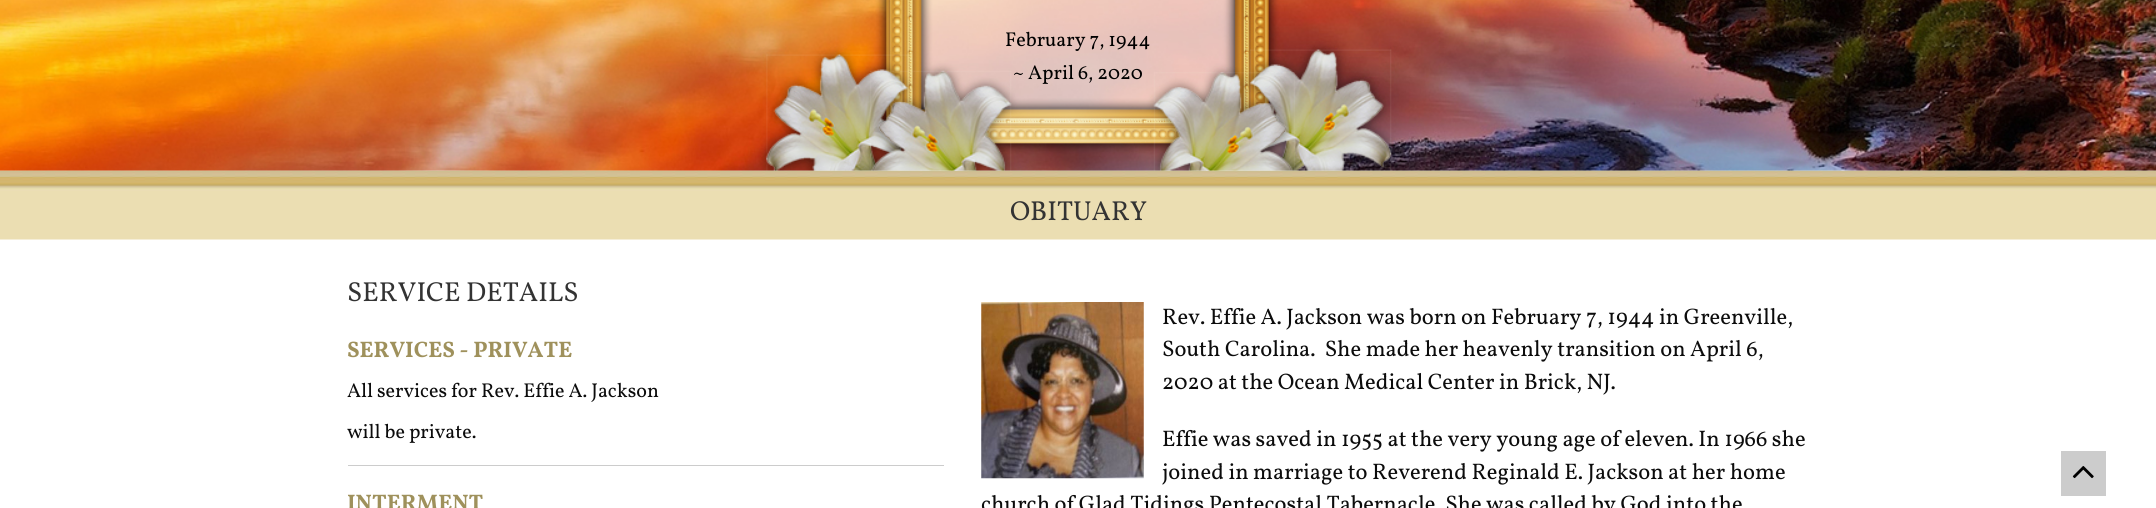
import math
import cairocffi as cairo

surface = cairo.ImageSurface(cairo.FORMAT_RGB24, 2156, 508)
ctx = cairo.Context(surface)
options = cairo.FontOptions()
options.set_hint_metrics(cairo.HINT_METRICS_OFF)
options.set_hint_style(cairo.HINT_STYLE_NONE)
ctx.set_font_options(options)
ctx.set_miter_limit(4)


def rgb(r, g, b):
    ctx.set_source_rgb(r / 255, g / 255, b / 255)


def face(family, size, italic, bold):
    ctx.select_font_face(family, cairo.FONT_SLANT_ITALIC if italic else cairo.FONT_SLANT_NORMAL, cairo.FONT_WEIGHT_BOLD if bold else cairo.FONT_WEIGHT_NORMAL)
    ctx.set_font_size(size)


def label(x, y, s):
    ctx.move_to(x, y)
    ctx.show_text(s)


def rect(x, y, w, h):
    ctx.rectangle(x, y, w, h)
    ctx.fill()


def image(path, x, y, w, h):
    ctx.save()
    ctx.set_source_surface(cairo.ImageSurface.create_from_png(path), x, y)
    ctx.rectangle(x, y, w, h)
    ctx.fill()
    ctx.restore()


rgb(255, 255, 255)
ctx.paint()
image('image0.png', 0, 0, 2156, 171)
face('Vollkorn', 20, 0, 0)
rgb(0, 0, 0)
label(1005, 46, 'February 7, 1944')
label(1013, 79, '~ April 6, 2020')
image('image1.png', 0, 170, 2156, 70)
face('Vollkorn', 27.5, 0, 0)
rgb(51, 51, 51)
label(1010, 220, 'OBITUARY')
label(347, 301, 'SERVICE DETAILS')
face('Vollkorn', 22.5, 0, 1)
rgb(159, 145, 92)
label(347, 357, 'SERVICES - PRIVATE')
face('Vollkorn', 20, 0, 0)
rgb(12, 12, 12)
label(347, 397, 'All services for Rev. Effie A. Jackson')
label(347, 438, 'will be private.')
rgb(204, 204, 204)
rect(348, 465, 596, 1)
face('Vollkorn', 22.5, 0, 1)
rgb(159, 145, 92)
label(347, 510, 'INTERMENT')
image('image2.png', 981, 302, 163, 177)
face('Vollkorn', 22.5, 0, 0)
rgb(12, 12, 12)
label(1162, 324, 'Rev. Effie A. Jackson was born on February 7, 1944 in Greenville,')
label(1162, 356, 'South Carolina.  She made her heavenly transition on April 6,')
label(1162, 389, '2020 at the Ocean Medical Center in Brick, NJ.')
label(1162, 446, 'Effie was saved in 1955 at the very young age of eleven. In 1966 she')
label(1162, 479, 'joined in marriage to Reverend Reginald E. Jackson at her home')
label(981, 511, 'church of Glad Tidings Pentecostal Tabernacle. She was called by God into the')
rgb(204, 204, 204)
rect(2061, 451, 45, 45)
image('image3.png', 2072, 466, 22, 13)
surface.write_to_png('render.png')
